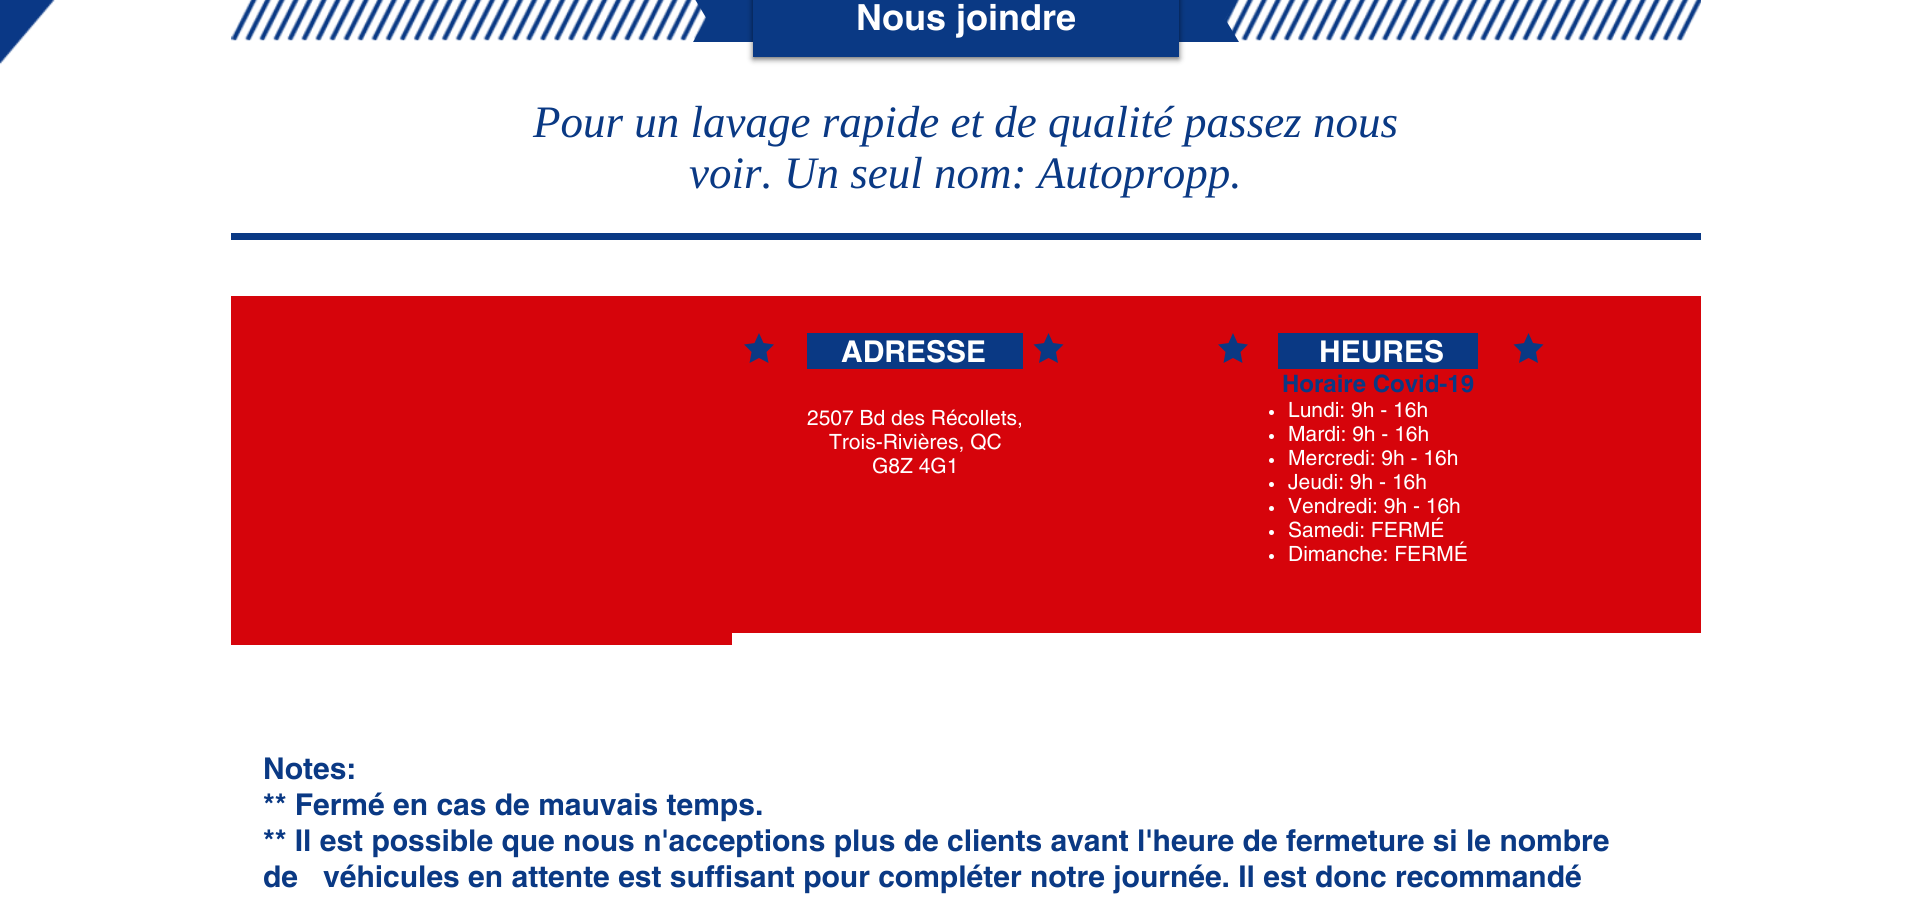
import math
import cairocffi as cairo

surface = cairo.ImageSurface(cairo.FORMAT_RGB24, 1930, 909)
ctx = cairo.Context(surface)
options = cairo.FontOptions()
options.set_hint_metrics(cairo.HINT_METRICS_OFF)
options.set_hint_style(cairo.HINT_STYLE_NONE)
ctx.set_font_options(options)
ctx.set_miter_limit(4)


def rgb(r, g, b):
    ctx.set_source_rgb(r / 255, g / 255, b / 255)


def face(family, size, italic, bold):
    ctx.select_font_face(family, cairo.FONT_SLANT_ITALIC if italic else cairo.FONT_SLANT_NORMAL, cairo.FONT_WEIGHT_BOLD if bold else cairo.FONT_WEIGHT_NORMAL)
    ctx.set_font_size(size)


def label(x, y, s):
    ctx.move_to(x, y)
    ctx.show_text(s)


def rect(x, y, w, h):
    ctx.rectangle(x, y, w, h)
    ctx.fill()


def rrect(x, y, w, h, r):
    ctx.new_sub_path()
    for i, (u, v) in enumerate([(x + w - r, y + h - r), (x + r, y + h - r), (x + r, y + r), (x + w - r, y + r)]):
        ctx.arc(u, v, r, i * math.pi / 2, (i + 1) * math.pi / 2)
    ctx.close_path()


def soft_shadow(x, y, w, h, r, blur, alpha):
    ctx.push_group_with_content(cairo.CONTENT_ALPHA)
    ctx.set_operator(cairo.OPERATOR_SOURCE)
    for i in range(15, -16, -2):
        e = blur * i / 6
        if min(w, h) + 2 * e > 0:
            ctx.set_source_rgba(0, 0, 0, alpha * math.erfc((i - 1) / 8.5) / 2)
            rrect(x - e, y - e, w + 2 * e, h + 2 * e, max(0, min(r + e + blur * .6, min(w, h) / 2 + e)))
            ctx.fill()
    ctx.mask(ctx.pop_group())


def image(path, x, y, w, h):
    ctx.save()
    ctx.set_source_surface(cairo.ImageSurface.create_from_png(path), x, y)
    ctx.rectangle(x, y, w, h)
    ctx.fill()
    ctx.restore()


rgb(255, 255, 255)
ctx.paint()
image('image0.png', 0, 0, 55, 65)
image('image1.png', 231, 0, 1470, 41)
ctx.save()
ctx.rectangle(693, 0, 546, 20)
ctx.clip()
rgb(10, 57, 132)
ctx.new_path()
ctx.move_to(693, -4)
ctx.line_to(783, -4)
ctx.line_to(783, 146)
ctx.close_path()
ctx.fill()
ctx.new_path()
ctx.move_to(1149, -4)
ctx.line_to(1239, -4)
ctx.line_to(1149, 146)
ctx.close_path()
ctx.fill()
ctx.restore()
ctx.save()
ctx.rectangle(693, 20, 546, 22)
ctx.clip()
rgb(10, 57, 132)
ctx.new_path()
ctx.move_to(783, 42)
ctx.line_to(693, 42)
ctx.line_to(783, -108)
ctx.close_path()
ctx.fill()
ctx.new_path()
ctx.move_to(1239, 42)
ctx.line_to(1149, 42)
ctx.line_to(1149, -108)
ctx.close_path()
ctx.fill()
ctx.restore()
rgb(0, 0, 0)
soft_shadow(753, -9, 426, 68, 0, 3, 0.6)
rgb(10, 57, 132)
rect(753, 0, 426, 57)
face('helvetica', 36, 0, 1)
rgb(255, 255, 255)
label(856, 30, 'Nous joindre')
face('Liberation Serif', 45, 1, 0)
rgb(10, 57, 132)
label(533, 137, 'Pour un lavage rapide et de qualité passez nous')
label(689, 188, 'voir. Un seul nom: Autopropp.')
rect(231, 233, 1470, 7)
rgb(214, 4, 11)
rect(231, 296, 501, 349)
rect(732, 296, 969, 337)
rgb(10, 57, 132)
ctx.new_path()
ctx.move_to(759, 333)
ctx.line_to(763.5, 343)
ctx.line_to(774, 344.5)
ctx.line_to(766.5, 352)
ctx.line_to(768.5, 363)
ctx.line_to(759, 358)
ctx.line_to(749.5, 363)
ctx.line_to(751.5, 352)
ctx.line_to(744, 344.5)
ctx.line_to(754.5, 343)
ctx.close_path()
ctx.fill()
rect(807, 333, 216, 36)
face('helvetica', 30, 0, 1)
rgb(255, 255, 255)
label(841, 362, 'ADRESSE')
face('helvetica', 21, 0, 0)
label(807, 425, '2507 Bd des Récollets,')
label(829, 449, 'Trois-Rivières, QC')
label(872, 473, 'G8Z 4G1')
rgb(10, 57, 132)
ctx.new_path()
ctx.move_to(1048.5, 333)
ctx.line_to(1053, 343)
ctx.line_to(1063.5, 344.5)
ctx.line_to(1056, 352)
ctx.line_to(1058, 363)
ctx.line_to(1048.5, 358)
ctx.line_to(1039, 363)
ctx.line_to(1041, 352)
ctx.line_to(1033.5, 344.5)
ctx.line_to(1044, 343)
ctx.close_path()
ctx.fill()
ctx.new_path()
ctx.move_to(1233, 333)
ctx.line_to(1237.5, 343)
ctx.line_to(1248, 344.5)
ctx.line_to(1240.5, 352)
ctx.line_to(1242.5, 363)
ctx.line_to(1233, 358)
ctx.line_to(1223.5, 363)
ctx.line_to(1225.5, 352)
ctx.line_to(1218, 344.5)
ctx.line_to(1228.5, 343)
ctx.close_path()
ctx.fill()
rect(1278, 333, 200, 36)
face('helvetica', 30, 0, 1)
rgb(255, 255, 255)
label(1319, 362, 'HEURES')
face('helvetica', 24, 0, 1)
rgb(10, 57, 132)
label(1282, 392, 'Horaire Covid-19')
rgb(255, 255, 255)
ctx.new_path()
ctx.arc(1271.5, 412.5, 2.5, 0, 2 * math.pi)
ctx.fill()
face('helvetica', 21, 0, 0)
label(1288, 417, 'Lundi: 9h - 16h')
ctx.new_path()
ctx.arc(1271.5, 436.5, 2.5, 0, 2 * math.pi)
ctx.fill()
label(1288, 441, 'Mardi: 9h - 16h')
ctx.new_path()
ctx.arc(1271.5, 460.5, 2.5, 0, 2 * math.pi)
ctx.fill()
label(1288, 465, 'Mercredi: 9h - 16h')
ctx.new_path()
ctx.arc(1271.5, 484.5, 2.5, 0, 2 * math.pi)
ctx.fill()
label(1288, 489, 'Jeudi: 9h - 16h')
ctx.new_path()
ctx.arc(1271.5, 508.5, 2.5, 0, 2 * math.pi)
ctx.fill()
label(1288, 513, 'Vendredi: 9h - 16h')
ctx.new_path()
ctx.arc(1271.5, 532.5, 2.5, 0, 2 * math.pi)
ctx.fill()
label(1288, 537, 'Samedi: FERMÉ')
ctx.new_path()
ctx.arc(1271.5, 556.5, 2.5, 0, 2 * math.pi)
ctx.fill()
label(1288, 561, 'Dimanche: FERMÉ')
rgb(10, 57, 132)
ctx.new_path()
ctx.move_to(1528.5, 333)
ctx.line_to(1533, 343)
ctx.line_to(1543.5, 344.5)
ctx.line_to(1536, 352)
ctx.line_to(1538, 363)
ctx.line_to(1528.5, 358)
ctx.line_to(1519, 363)
ctx.line_to(1521, 352)
ctx.line_to(1513.5, 344.5)
ctx.line_to(1524, 343)
ctx.close_path()
ctx.fill()
face('helvetica', 30, 0, 1)
label(263, 779, 'Notes:')
label(263, 815, '** Fermé en cas de mauvais temps.')
label(263, 851, '** Il est possible que nous n\'acceptions plus de clients avant l\'heure de fermeture si le nombre')
label(263, 887, 'de   véhicules en attente est suffisant pour compléter notre journée. Il est donc recommandé')
surface.write_to_png('render.png')
